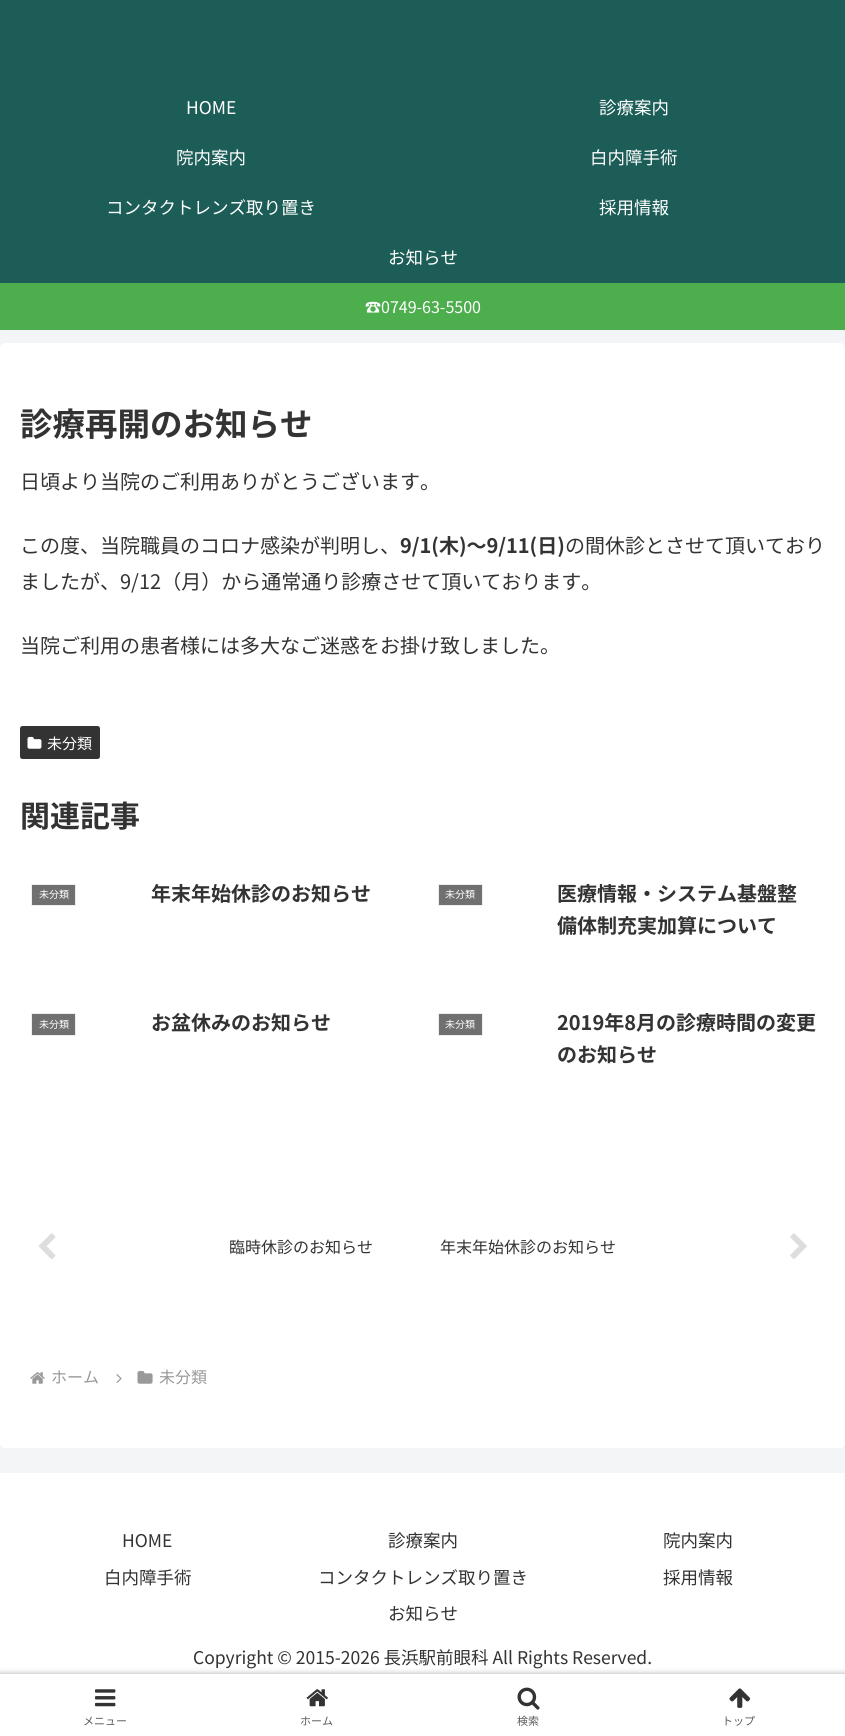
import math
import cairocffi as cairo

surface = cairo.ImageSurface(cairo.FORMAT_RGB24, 845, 1736)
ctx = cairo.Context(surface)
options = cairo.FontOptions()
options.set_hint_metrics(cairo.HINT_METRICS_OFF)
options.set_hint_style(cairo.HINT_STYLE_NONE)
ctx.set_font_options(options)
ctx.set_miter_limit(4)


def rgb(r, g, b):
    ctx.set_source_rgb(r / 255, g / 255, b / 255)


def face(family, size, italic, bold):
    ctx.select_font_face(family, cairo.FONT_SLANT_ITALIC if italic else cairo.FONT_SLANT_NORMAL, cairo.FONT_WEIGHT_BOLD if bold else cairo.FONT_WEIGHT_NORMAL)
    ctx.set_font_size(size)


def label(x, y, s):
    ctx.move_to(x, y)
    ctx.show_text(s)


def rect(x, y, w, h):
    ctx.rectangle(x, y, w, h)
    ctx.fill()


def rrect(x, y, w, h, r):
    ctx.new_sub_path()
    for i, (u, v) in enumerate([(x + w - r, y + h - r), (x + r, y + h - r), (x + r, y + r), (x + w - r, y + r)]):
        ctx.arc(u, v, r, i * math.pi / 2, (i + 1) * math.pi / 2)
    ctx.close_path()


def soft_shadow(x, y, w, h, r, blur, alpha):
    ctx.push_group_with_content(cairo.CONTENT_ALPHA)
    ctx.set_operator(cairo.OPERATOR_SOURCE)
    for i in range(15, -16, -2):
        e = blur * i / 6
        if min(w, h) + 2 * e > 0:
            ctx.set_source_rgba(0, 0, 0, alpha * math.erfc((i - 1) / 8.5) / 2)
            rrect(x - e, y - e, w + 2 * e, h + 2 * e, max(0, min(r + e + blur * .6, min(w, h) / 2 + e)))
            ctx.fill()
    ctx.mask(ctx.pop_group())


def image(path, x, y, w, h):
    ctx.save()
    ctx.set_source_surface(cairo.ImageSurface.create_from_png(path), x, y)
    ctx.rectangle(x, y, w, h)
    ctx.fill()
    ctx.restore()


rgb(244, 245, 247)
ctx.paint()
rgb(28, 93, 87)
rect(0, 0, 845, 283)
face('Noto Sans JP', 17.5, 0, 0)
rgb(255, 255, 255)
label(186, 114, 'HOME')
label(599, 114, '診療案内')
label(176, 164, '院内案内')
label(590, 164, '白内障手術')
label(106, 214, 'コンタクトレンズ取り置き')
label(599, 214, '採用情報')
label(388, 264, 'お知らせ')
rgb(76, 174, 76)
rect(0, 283, 845, 47)
face('Noto Sans JP', 16, 0, 0)
rgb(255, 255, 255)
label(365, 313, '☎0749-63-5500')
rrect(0, 343, 845, 1105, 5)
ctx.fill()
face('Noto Sans JP', 32.5, 0, 1)
rgb(51, 51, 51)
label(20, 436, '診療再開のお知らせ')
face('Noto Sans JP', 20, 0, 0)
label(20, 489, '日頃より当院のご利用ありがとうございます。')
label(20, 553, 'この度、当院職員のコロナ感染が判明し、')
face('Noto Sans JP', 20, 0, 1)
label(400, 553, '9/1(木)〜9/11(日)')
face('Noto Sans JP', 20, 0, 0)
label(565, 553, 'の間休診とさせて頂いており')
label(20, 589, 'ましたが、9/12（月）から通常通り診療させて頂いております。')
label(20, 653, '当院ご利用の患者様には多大なご迷惑をお掛け致しました。')
rrect(20, 726, 80, 33, 2.5)
ctx.fill()
image('image0.png', 27, 736, 15, 13)
face('Noto Sans JP', 15, 0, 0)
rgb(255, 255, 255)
label(47, 749, '未分類')
face('Noto Sans JP', 30, 0, 1)
rgb(51, 51, 51)
label(20, 827, '関連記事')
rgb(112, 112, 112)
ctx.rectangle(31.5, 884.5, 44, 21)
ctx.fill_preserve()
rgb(238, 238, 238)
ctx.set_line_width(1)
ctx.stroke()
face('Noto Sans JP', 10, 0, 0)
rgb(255, 255, 255)
label(39, 898, '未分類')
face('Noto Sans JP', 20, 0, 1)
rgb(51, 51, 51)
label(151, 901, '年末年始休診のお知らせ')
rgb(112, 112, 112)
ctx.rectangle(438.5, 884.5, 44, 21)
ctx.fill_preserve()
rgb(238, 238, 238)
ctx.stroke()
face('Noto Sans JP', 10, 0, 0)
rgb(255, 255, 255)
label(445, 898, '未分類')
face('Noto Sans JP', 20, 0, 1)
rgb(51, 51, 51)
label(557, 901, '医療情報・システム基盤整')
label(557, 933, '備体制充実加算について')
rgb(112, 112, 112)
ctx.rectangle(31.5, 1013.5, 44, 22)
ctx.fill_preserve()
rgb(238, 238, 238)
ctx.stroke()
face('Noto Sans JP', 10, 0, 0)
rgb(255, 255, 255)
label(39, 1028, '未分類')
face('Noto Sans JP', 20, 0, 1)
rgb(51, 51, 51)
label(151, 1030, 'お盆休みのお知らせ')
rgb(112, 112, 112)
ctx.rectangle(438.5, 1013.5, 44, 22)
ctx.fill_preserve()
rgb(238, 238, 238)
ctx.stroke()
face('Noto Sans JP', 10, 0, 0)
rgb(255, 255, 255)
label(445, 1028, '未分類')
face('Noto Sans JP', 20, 0, 1)
rgb(51, 51, 51)
label(557, 1030, '2019年8月の診療時間の変更')
label(557, 1062, 'のお知らせ')
image('image1.png', 38, 1233, 18, 26)
face('Noto Sans JP', 16, 0, 0)
label(229, 1253, '臨時休診のお知らせ')
label(440, 1253, '年末年始休診のお知らせ')
image('image2.png', 790, 1233, 17, 26)
image('image3.png', 30, 1372, 15, 12)
rgb(153, 153, 153)
label(51, 1383, 'ホーム')
image('image4.png', 116, 1374, 6, 9)
image('image5.png', 137, 1371, 16, 13)
label(159, 1383, '未分類')
rgb(255, 255, 255)
rect(0, 1473, 845, 201)
face('Noto Sans JP', 17.5, 0, 0)
rgb(51, 51, 51)
label(122, 1547, 'HOME')
label(388, 1547, '診療案内')
label(663, 1547, '院内案内')
label(104, 1584, '白内障手術')
label(318, 1584, 'コンタクトレンズ取り置き')
label(663, 1584, '採用情報')
label(388, 1620, 'お知らせ')
label(193, 1664, 'Copyright © 2015-2026 長浜駅前眼科 All Rights Reserved.')
rgb(169, 169, 169)
soft_shadow(0, 1674, 845, 62, 0, 3, 1)
rgb(255, 255, 255)
rect(0, 1674, 845, 62)
image('image6.png', 95, 1689, 21, 18)
face('Noto Sans JP', 11, 0, 0)
rgb(92, 92, 92)
label(83, 1725, 'メニュー')
image('image7.png', 306, 1689, 22, 18)
label(300, 1725, 'ホーム')
image('image8.png', 517, 1687, 23, 23)
label(517, 1725, '検索')
image('image9.png', 729, 1688, 22, 20)
label(722, 1725, 'トップ')
surface.write_to_png('render.png')
